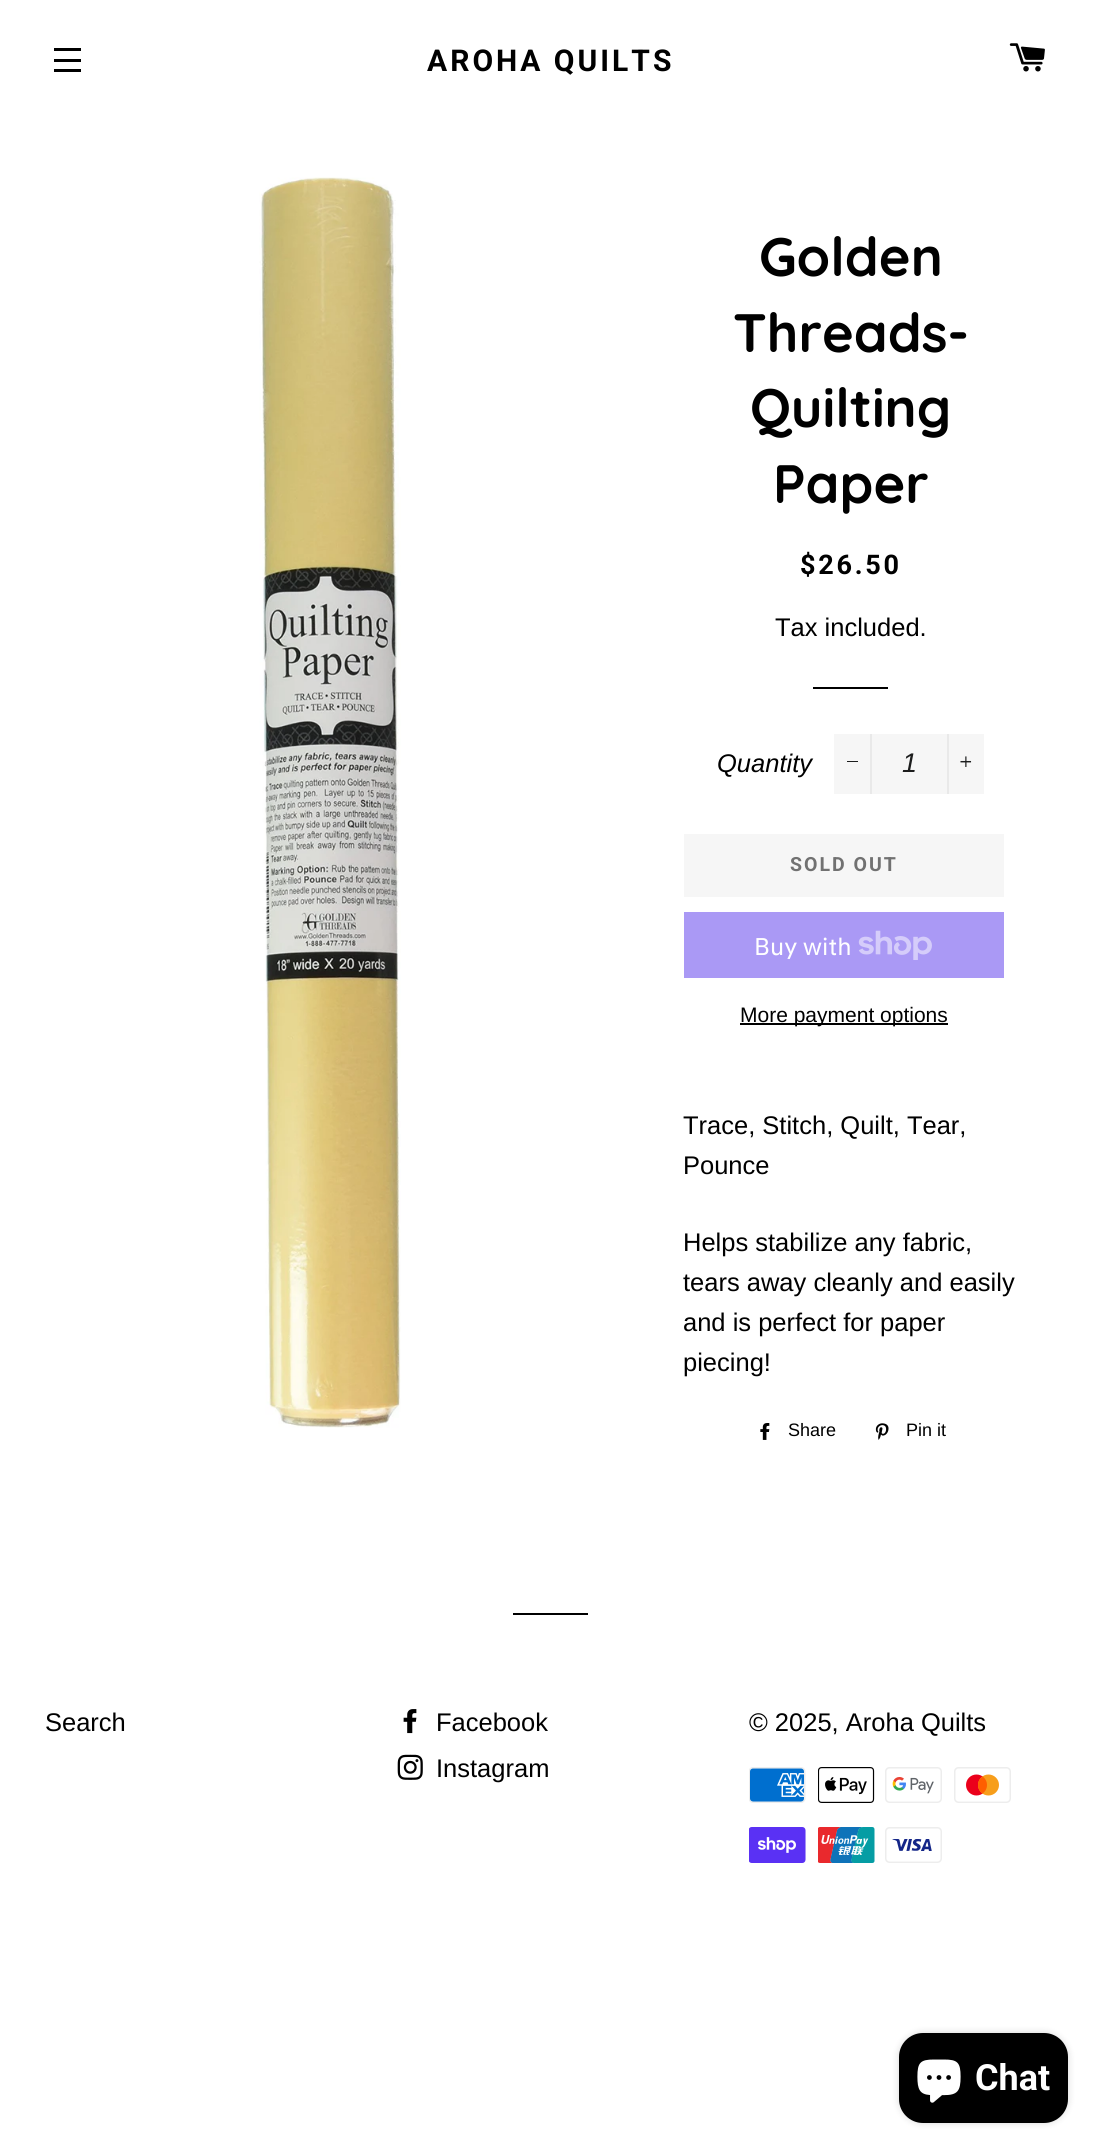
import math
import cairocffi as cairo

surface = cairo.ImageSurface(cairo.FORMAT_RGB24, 1100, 2154)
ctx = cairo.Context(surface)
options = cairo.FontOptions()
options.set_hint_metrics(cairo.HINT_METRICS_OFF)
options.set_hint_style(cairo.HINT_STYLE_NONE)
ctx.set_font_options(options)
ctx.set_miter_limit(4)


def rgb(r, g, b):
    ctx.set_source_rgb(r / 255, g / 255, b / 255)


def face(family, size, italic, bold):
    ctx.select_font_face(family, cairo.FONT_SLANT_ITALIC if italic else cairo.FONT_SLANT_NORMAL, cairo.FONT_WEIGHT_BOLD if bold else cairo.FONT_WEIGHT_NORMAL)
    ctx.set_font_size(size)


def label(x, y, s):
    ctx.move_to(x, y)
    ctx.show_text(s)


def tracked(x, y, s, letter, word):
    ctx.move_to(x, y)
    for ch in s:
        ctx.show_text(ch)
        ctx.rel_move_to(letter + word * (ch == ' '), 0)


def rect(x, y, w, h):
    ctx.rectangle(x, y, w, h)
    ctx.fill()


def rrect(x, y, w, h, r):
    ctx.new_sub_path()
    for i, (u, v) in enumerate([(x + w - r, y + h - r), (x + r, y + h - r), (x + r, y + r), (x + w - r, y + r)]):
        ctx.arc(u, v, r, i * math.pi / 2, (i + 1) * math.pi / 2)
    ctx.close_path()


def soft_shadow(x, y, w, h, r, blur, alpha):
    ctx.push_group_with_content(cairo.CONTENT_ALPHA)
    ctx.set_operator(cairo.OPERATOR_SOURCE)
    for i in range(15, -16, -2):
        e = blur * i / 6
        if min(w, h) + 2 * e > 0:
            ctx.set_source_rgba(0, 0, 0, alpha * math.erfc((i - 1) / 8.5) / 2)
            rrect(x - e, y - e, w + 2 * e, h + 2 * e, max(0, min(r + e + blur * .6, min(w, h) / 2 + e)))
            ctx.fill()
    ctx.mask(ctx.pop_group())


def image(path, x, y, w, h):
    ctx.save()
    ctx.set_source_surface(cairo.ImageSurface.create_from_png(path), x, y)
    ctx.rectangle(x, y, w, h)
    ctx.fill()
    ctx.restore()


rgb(255, 255, 255)
ctx.paint()
rgb(0, 0, 0)
rect(54, 48, 27, 3)
rect(54, 59, 27, 3)
rect(54, 69, 27, 3)
face('Roboto', 30, 0, 1)
tracked(427, 71, 'AROHA QUILTS', 3, 0)
image('image0.png', 1009, 43, 36, 29)
image('image1.png', 259, 177, 142, 1251)
face('Quicksand', 54, 0, 1)
label(759, 276, 'Golden')
label(733, 352, 'Threads-')
label(750, 427, 'Quilting')
label(773, 503, 'Paper')
face('Roboto', 27, 0, 1)
tracked(800, 574, '$26.50', 2.75, 0)
face('Liberation Sans', 25.5, 0, 0)
label(775, 636, 'Tax included.')
rect(813, 687, 75, 2)
face('Liberation Sans', 25.5, 1, 0)
label(717, 772, 'Quantity')
rgb(246, 246, 246)
rect(834, 734, 150, 60)
rgb(233, 233, 233)
rect(870, 734, 2, 60)
rgb(28, 29, 29)
rect(847, 761, 11, 1)
face('Liberation Sans', 27, 1, 0)
label(902, 772, '1')
rgb(233, 233, 233)
rect(947, 734, 2, 60)
image('image2.png', 960, 756, 12, 11)
rgb(246, 246, 246)
rect(684, 834, 320, 63)
face('Roboto', 19.5, 0, 1)
rgb(113, 113, 113)
tracked(790, 871, 'SOLD OUT', 2, 0)
rgb(170, 153, 245)
rect(684, 912, 320, 66)
face('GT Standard', 24, 0, 0)
rgb(255, 255, 255)
label(754, 955, 'Buy with')
image('image3.png', 858, 930, 74, 30)
rgb(0, 0, 0)
rect(740, 1023, 208, 2)
face('Liberation Sans', 21, 0, 0)
label(740, 1022, 'More payment options')
face('Liberation Sans', 25.5, 0, 0)
label(683, 1134, 'Trace, Stitch, Quilt, Tear,')
label(683, 1174, 'Pounce')
label(683, 1251, 'Helps stabilize any fabric,')
label(683, 1291, 'tears away cleanly and easily')
label(683, 1331, 'and is perfect for paper')
label(683, 1371, 'piecing!')
image('image4.png', 760, 1423, 10, 17)
face('Liberation Sans', 18, 0, 0)
label(788, 1436, 'Share')
image('image5.png', 875, 1423, 14, 17)
label(906, 1436, 'Pin it')
rect(513, 1613, 75, 2)
face('Liberation Sans', 25.5, 0, 0)
label(45, 1731, 'Search')
image('image6.png', 403, 1709, 14, 25)
label(436, 1731, 'Facebook')
image('image7.png', 397, 1754, 26, 26)
label(436, 1777, 'Instagram')
label(749, 1731, '© 2025, Aroha Quilts')
image('image8.png', 749, 1767, 57, 36)
image('image9.png', 818, 1767, 57, 36)
image('image10.png', 885, 1767, 57, 36)
image('image11.png', 954, 1767, 57, 36)
image('image12.png', 749, 1827, 57, 36)
image('image13.png', 818, 1827, 57, 36)
image('image14.png', 885, 1827, 57, 36)
rgb(0, 0, 0)
soft_shadow(899, 2033, 169, 90, 24, 4, 0.15)
rgb(0, 0, 0)
rrect(899, 2033, 169, 90, 24)
ctx.fill()
image('image15.png', 917, 2059, 44, 44)
face('Roboto', 36, 0, 1)
rgb(255, 255, 255)
label(975, 2090, 'Chat')
surface.write_to_png('render.png')
